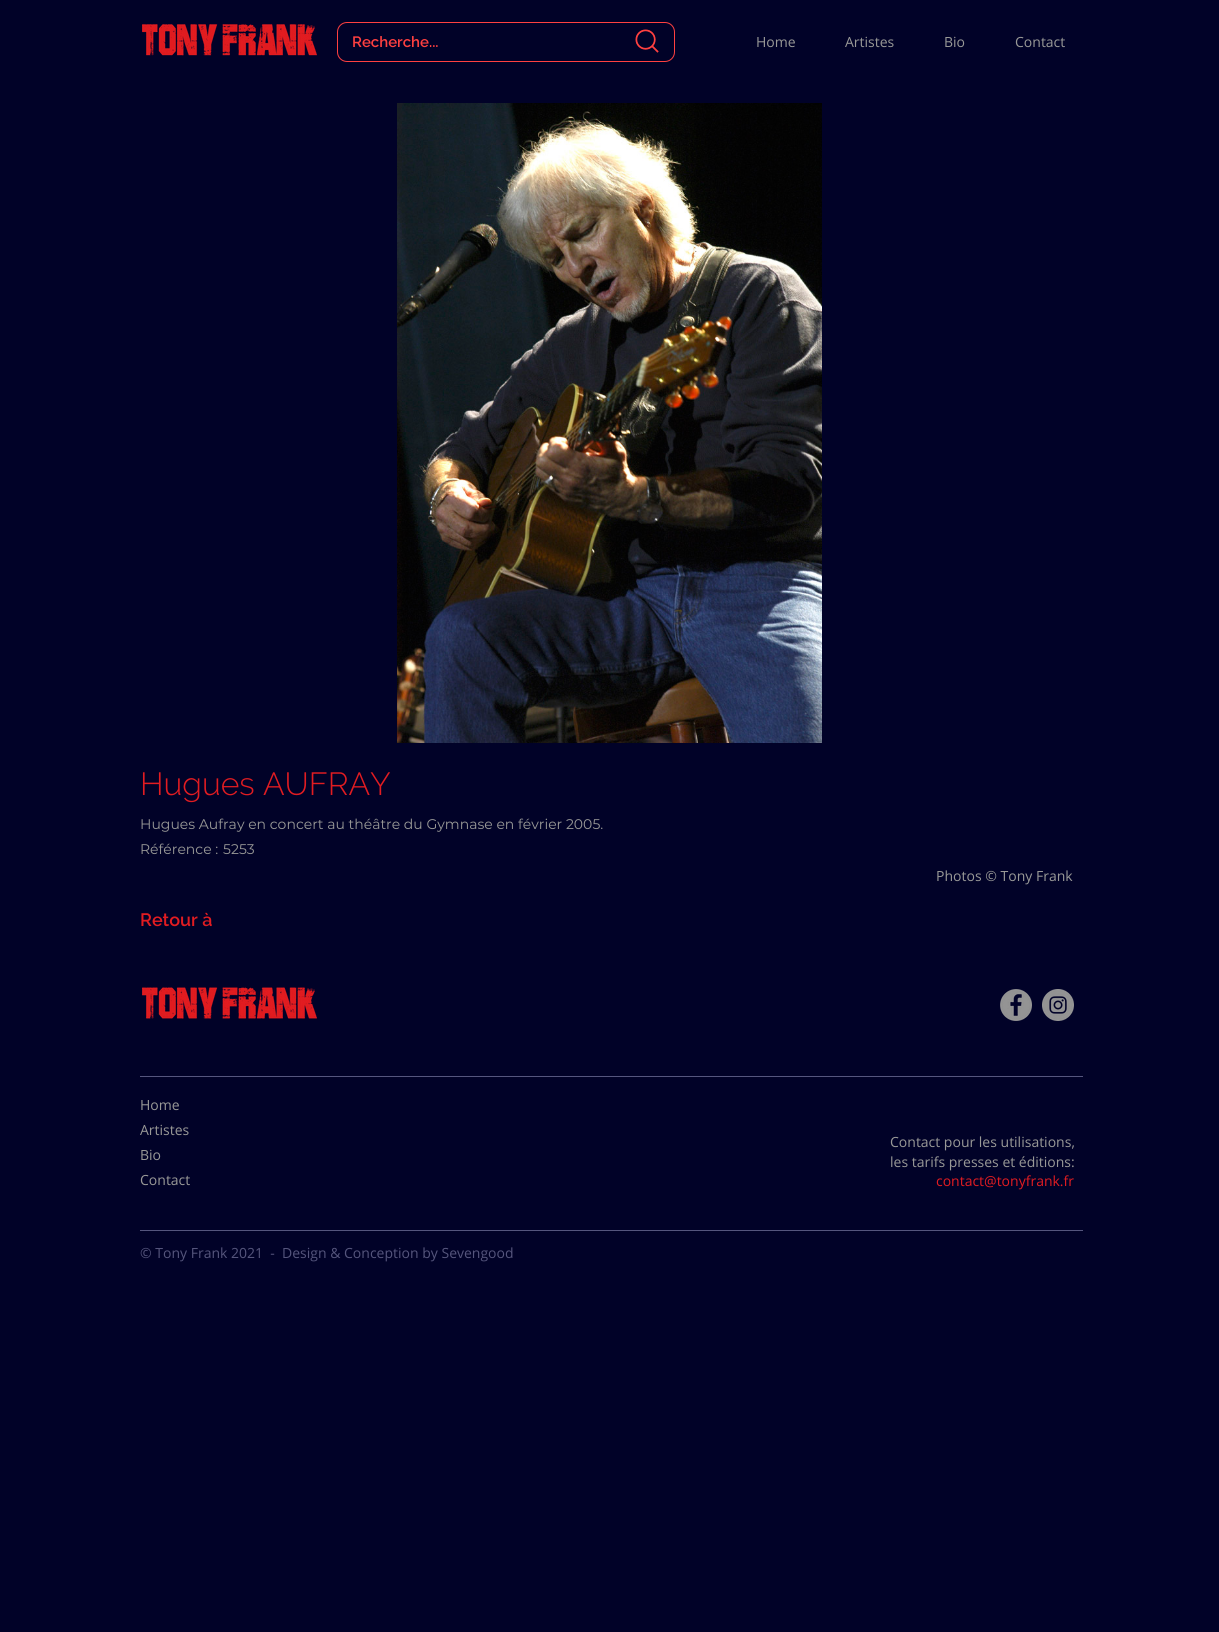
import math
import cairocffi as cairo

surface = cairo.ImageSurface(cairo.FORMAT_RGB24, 1219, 1632)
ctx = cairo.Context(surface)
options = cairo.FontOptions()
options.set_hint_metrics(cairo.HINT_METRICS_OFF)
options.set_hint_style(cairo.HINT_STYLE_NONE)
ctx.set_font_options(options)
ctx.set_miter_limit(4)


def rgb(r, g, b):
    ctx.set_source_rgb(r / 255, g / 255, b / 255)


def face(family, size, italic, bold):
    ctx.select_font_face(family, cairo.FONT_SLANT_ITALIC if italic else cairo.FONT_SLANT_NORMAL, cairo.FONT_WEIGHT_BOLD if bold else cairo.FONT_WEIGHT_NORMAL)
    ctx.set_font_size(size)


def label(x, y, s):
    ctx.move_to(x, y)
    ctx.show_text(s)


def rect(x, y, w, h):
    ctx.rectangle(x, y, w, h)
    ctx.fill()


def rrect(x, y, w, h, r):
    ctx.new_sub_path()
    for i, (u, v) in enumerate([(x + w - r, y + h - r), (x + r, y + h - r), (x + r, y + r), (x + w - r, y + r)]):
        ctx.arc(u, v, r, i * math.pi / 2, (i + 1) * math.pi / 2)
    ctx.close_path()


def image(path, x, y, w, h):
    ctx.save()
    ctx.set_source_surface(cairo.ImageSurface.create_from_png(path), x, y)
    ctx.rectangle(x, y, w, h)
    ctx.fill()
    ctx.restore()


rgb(1, 2, 40)
ctx.paint()
image('image0.png', 142, 24, 175, 32)
rrect(337.5, 22.5, 337, 39, 9.5)
rgb(255, 64, 64)
ctx.set_line_width(1)
ctx.stroke()
face('Raleway SemiBold', 15, 0, 0)
label(352, 47, 'Recherche...')
image('image1.png', 635, 29, 24, 24)
face('Open Sans', 14, 0, 0)
rgb(153, 153, 151)
label(756, 47, 'Home')
label(845, 47, 'Artistes')
label(944, 47, 'Bio')
label(1015, 47, 'Contact')
image('image2.png', 397, 103, 425, 640)
face('Raleway Light', 32, 0, 0)
rgb(226, 28, 33)
label(140, 795, 'Hugues AUFRAY')
face('Montserrat', 14, 0, 0)
rgb(153, 153, 151)
label(140, 829, 'Hugues Aufray en concert au théâtre du Gymnase en février 2005.')
label(140, 854, 'Référence :')
label(223, 854, '5253')
face('Open Sans', 14, 0, 0)
label(936, 881, 'Photos © Tony Frank')
face('Raleway SemiBold', 18, 0, 0)
rgb(226, 28, 33)
label(140, 926, 'Retour à')
image('image3.png', 142, 987, 175, 32)
image('image4.png', 1000, 989, 32, 32)
image('image5.png', 1042, 989, 32, 32)
rgb(85, 86, 126)
rect(140, 1076, 943, 1)
face('Open Sans', 14, 0, 0)
rgb(153, 153, 151)
label(140, 1110, 'Home')
label(140, 1135, 'Artistes')
label(140, 1160, 'Bio')
label(140, 1185, 'Contact')
label(890, 1147, 'Contact pour les utilisations,')
label(890, 1167, 'les tarifs presses et éditions:')
rgb(226, 28, 33)
label(936, 1186, 'contact@tonyfrank.fr')
rgb(85, 86, 126)
rect(140, 1230, 943, 1)
rgb(85, 85, 124)
label(140, 1258, '© Tony Frank 2021  -')
label(282, 1258, 'Design & Conception by Sevengood')
surface.write_to_png('render.png')
